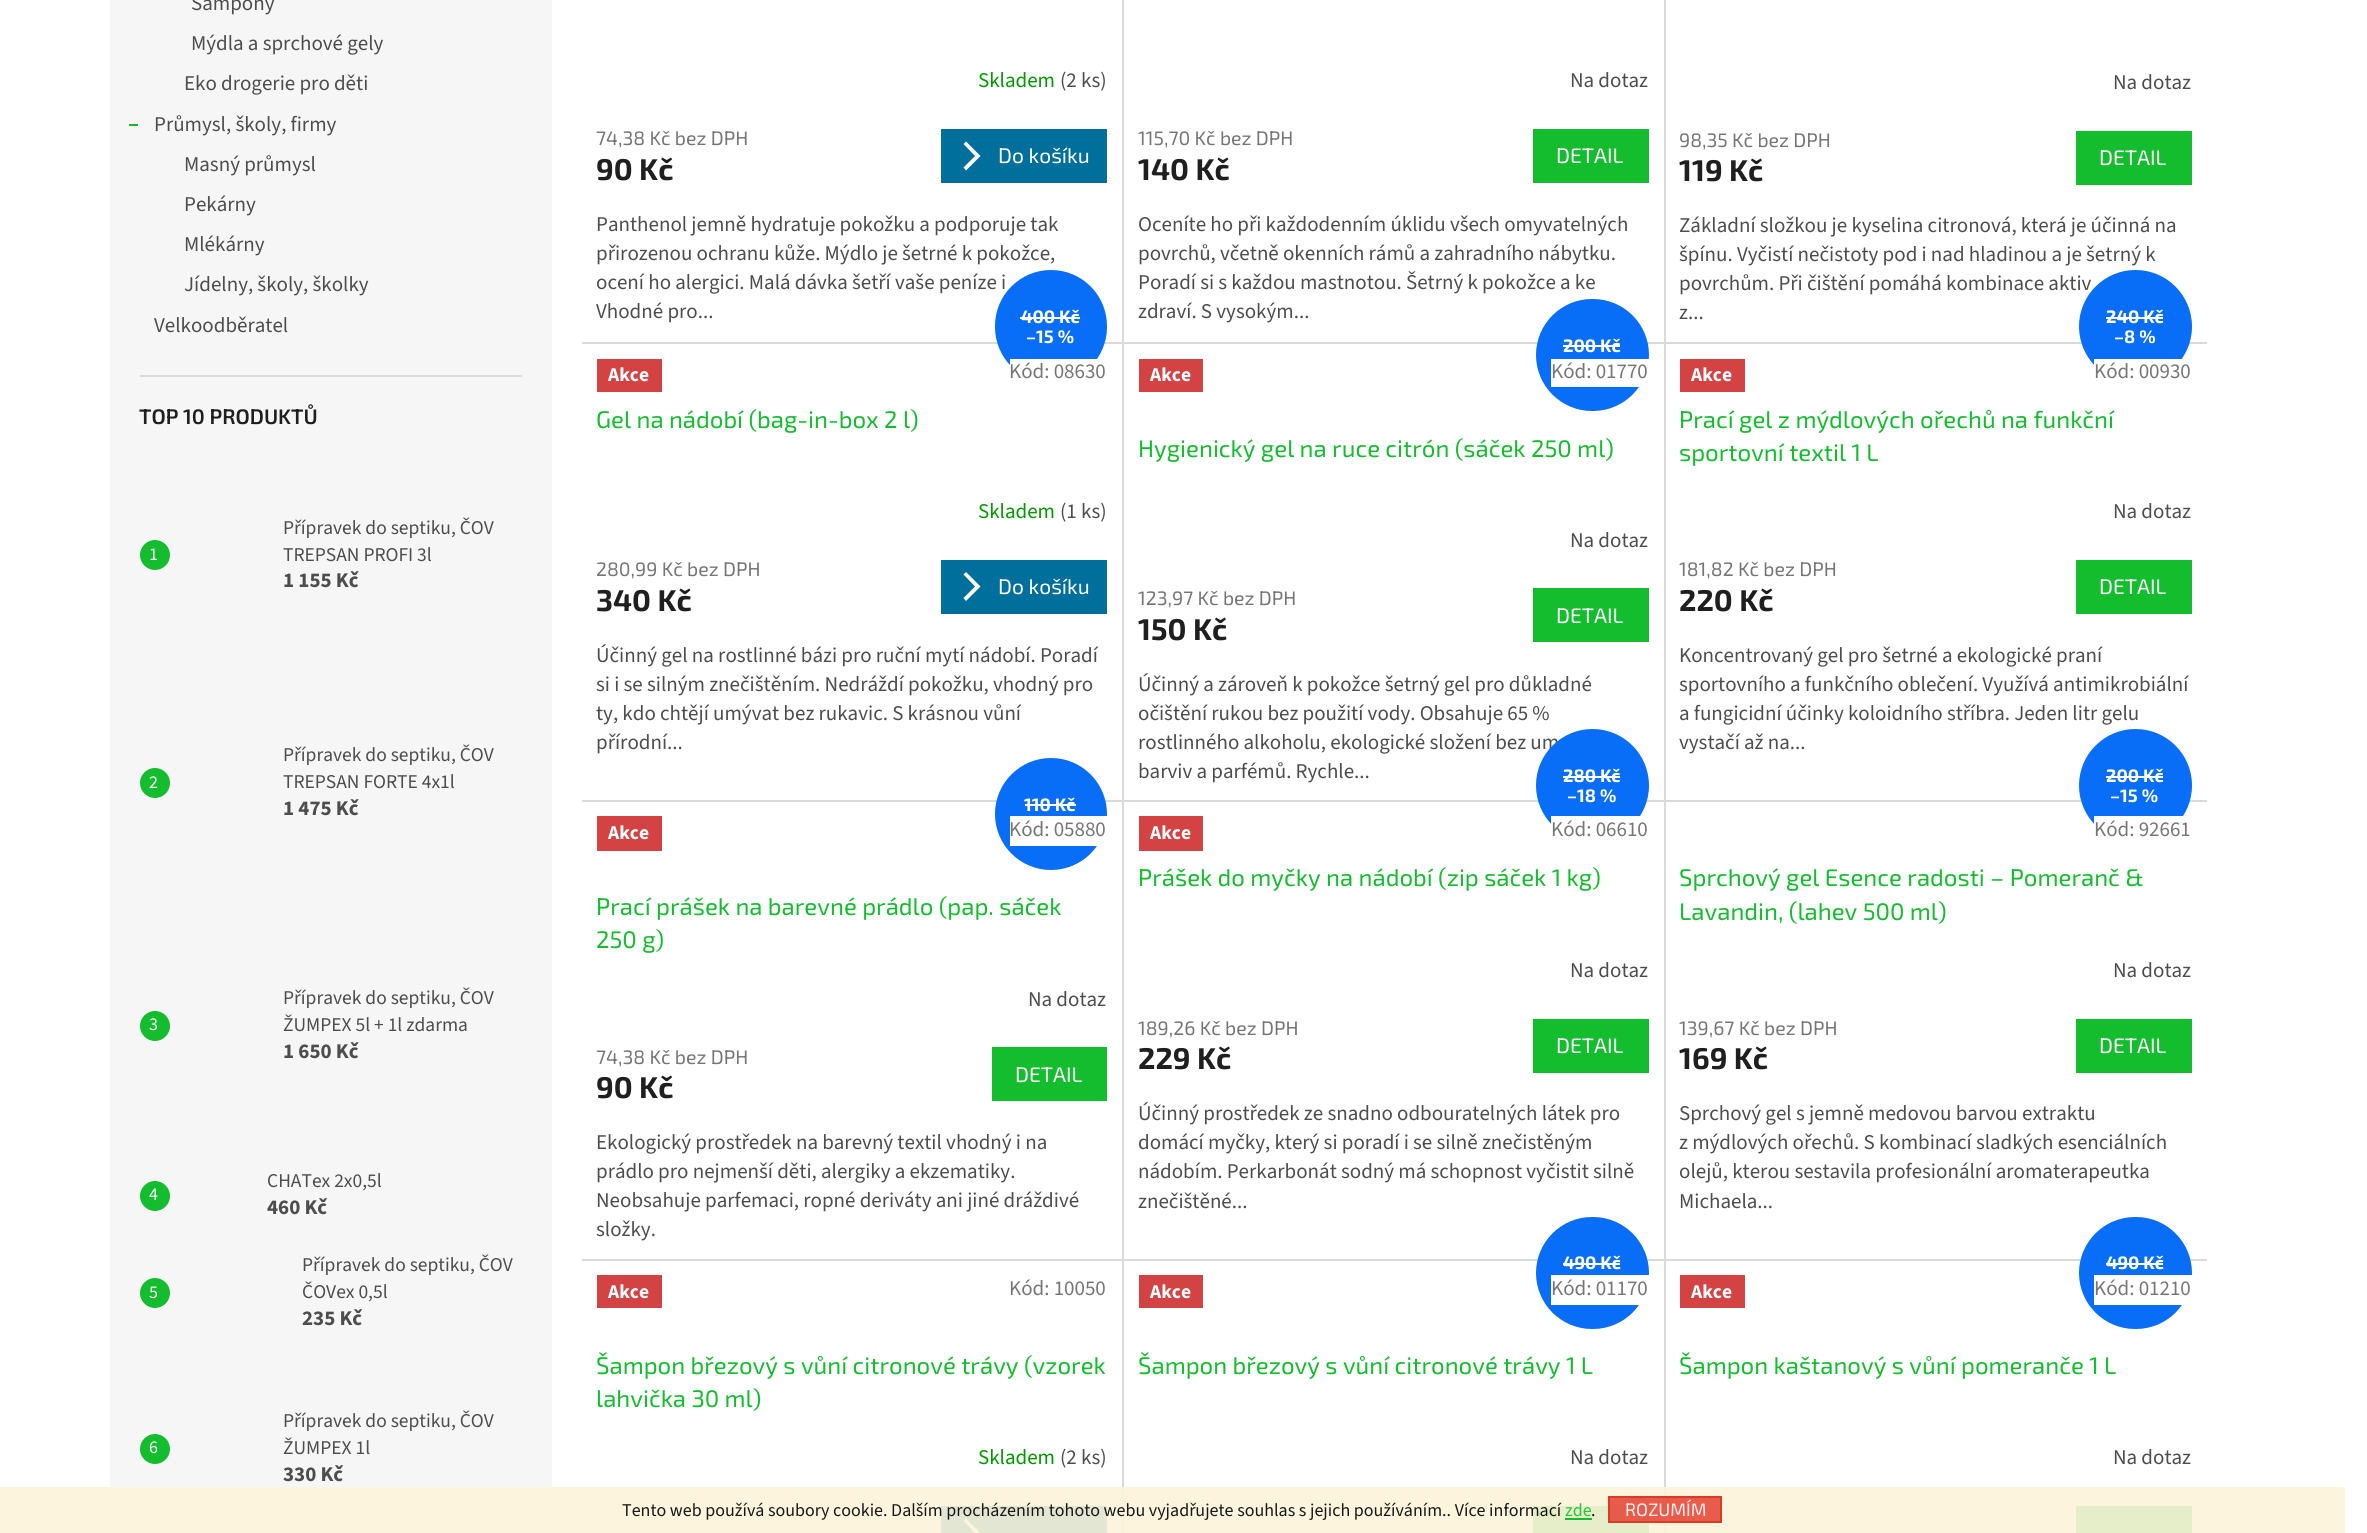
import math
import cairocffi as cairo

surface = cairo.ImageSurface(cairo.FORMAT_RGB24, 2367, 1533)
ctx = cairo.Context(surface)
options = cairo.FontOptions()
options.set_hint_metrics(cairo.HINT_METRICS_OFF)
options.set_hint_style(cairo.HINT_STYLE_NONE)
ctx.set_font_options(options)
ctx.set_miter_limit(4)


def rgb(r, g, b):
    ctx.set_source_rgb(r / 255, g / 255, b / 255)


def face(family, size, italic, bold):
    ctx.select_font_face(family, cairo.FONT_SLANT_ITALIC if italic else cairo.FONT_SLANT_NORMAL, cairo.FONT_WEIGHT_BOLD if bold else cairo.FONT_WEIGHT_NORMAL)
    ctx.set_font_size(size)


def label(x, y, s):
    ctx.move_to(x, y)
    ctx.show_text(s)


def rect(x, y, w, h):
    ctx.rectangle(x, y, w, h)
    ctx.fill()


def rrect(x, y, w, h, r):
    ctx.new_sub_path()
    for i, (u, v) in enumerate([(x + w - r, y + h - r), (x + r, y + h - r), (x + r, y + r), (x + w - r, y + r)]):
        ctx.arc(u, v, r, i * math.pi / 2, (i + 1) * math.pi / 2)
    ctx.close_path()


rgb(255, 255, 255)
ctx.paint()
rgb(253, 244, 222)
rect(0, 1487, 2345, 46)
rgb(246, 246, 246)
rect(110, 0, 442, 1487)
rgb(218, 218, 218)
rect(140, 375, 382, 2)
face('Source Sans 3', 21, 0, 0)
rgb(77, 77, 77)
label(191, 10, 'Šampony')
label(191, 50, 'Mýdla a sprchové gely')
label(184, 90, 'Eko drogerie pro děti')
rgb(20, 189, 46)
rect(129, 124, 9, 2)
rgb(77, 77, 77)
label(154, 131, 'Průmysl, školy, firmy')
label(184, 171, 'Masný průmysl')
label(184, 211, 'Pekárny')
label(184, 251, 'Mlékárny')
label(184, 291, 'Jídelny, školy, školky')
label(154, 332, 'Velkoodběratel')
face('Exo 2 SemiBold', 21, 0, 0)
rgb(31, 31, 31)
label(139, 424, 'TOP 10 PRODUKTŮ')
rgb(20, 189, 46)
ctx.new_path()
ctx.arc(155, 555, 15, 0, 2 * math.pi)
ctx.fill()
face('Source Sans 3', 18, 0, 0)
rgb(255, 255, 255)
label(149, 560, '1')
face('Source Sans 3', 19.5, 0, 0)
rgb(77, 77, 77)
label(283, 534, 'Přípravek do septiku, ČOV')
label(283, 561, 'TREPSAN PROFI 3l')
face('Source Sans 3', 21, 0, 1)
label(283, 587, '1 155 Kč')
rgb(20, 189, 46)
ctx.new_path()
ctx.arc(155, 783, 15, 0, 2 * math.pi)
ctx.fill()
face('Source Sans 3', 18, 0, 0)
rgb(255, 255, 255)
label(149, 788, '2')
face('Source Sans 3', 19.5, 0, 0)
rgb(77, 77, 77)
label(283, 761, 'Přípravek do septiku, ČOV')
label(283, 788, 'TREPSAN FORTE 4x1l')
face('Source Sans 3', 21, 0, 1)
label(283, 815, '1 475 Kč')
rgb(20, 189, 46)
ctx.new_path()
ctx.arc(155, 1026, 15, 0, 2 * math.pi)
ctx.fill()
face('Source Sans 3', 18, 0, 0)
rgb(255, 255, 255)
label(149, 1030, '3')
face('Source Sans 3', 19.5, 0, 0)
rgb(77, 77, 77)
label(283, 1004, 'Přípravek do septiku, ČOV')
label(283, 1031, 'ŽUMPEX 5l + 1l zdarma')
face('Source Sans 3', 21, 0, 1)
label(283, 1058, '1 650 Kč')
rgb(20, 189, 46)
ctx.new_path()
ctx.arc(155, 1196, 15, 0, 2 * math.pi)
ctx.fill()
face('Source Sans 3', 18, 0, 0)
rgb(255, 255, 255)
label(149, 1200, '4')
face('Source Sans 3', 19.5, 0, 0)
rgb(77, 77, 77)
label(267, 1187, 'CHATex 2x0,5l')
face('Source Sans 3', 21, 0, 1)
label(267, 1214, '460 Kč')
rgb(20, 189, 46)
ctx.new_path()
ctx.arc(155, 1293, 15, 0, 2 * math.pi)
ctx.fill()
face('Source Sans 3', 18, 0, 0)
rgb(255, 255, 255)
label(149, 1298, '5')
face('Source Sans 3', 19.5, 0, 0)
rgb(77, 77, 77)
label(302, 1271, 'Přípravek do septiku, ČOV')
label(302, 1298, 'ČOVex 0,5l')
face('Source Sans 3', 21, 0, 1)
label(302, 1325, '235 Kč')
rgb(20, 189, 46)
ctx.new_path()
ctx.arc(155, 1449, 15, 0, 2 * math.pi)
ctx.fill()
face('Source Sans 3', 18, 0, 0)
rgb(255, 255, 255)
label(149, 1453, '6')
face('Source Sans 3', 19.5, 0, 0)
rgb(77, 77, 77)
label(283, 1427, 'Přípravek do septiku, ČOV')
label(283, 1454, 'ŽUMPEX 1l')
face('Source Sans 3', 21, 0, 1)
label(283, 1481, '330 Kč')
rgb(218, 218, 218)
rect(1122, 0, 2, 342)
face('Source Sans 3', 21, 0, 0)
rgb(0, 153, 1)
label(978, 87, 'Skladem')
rgb(77, 77, 77)
label(1060, 87, '(2 ks)')
face('Exo 2', 19.5, 0, 0)
rgb(118, 118, 118)
label(596, 145, '74,38 Kč bez DPH')
face('Exo 2', 30, 0, 1)
rgb(31, 31, 31)
label(596, 180, '90 Kč')
rgb(0, 111, 155)
rect(941, 129, 166, 54)
rgb(255, 255, 255)
ctx.new_path()
ctx.move_to(966, 170.5)
ctx.line_to(963.5, 167.5)
ctx.line_to(975, 156)
ctx.line_to(963.5, 144)
ctx.line_to(966, 141.5)
ctx.line_to(980.5, 156)
ctx.close_path()
ctx.fill()
face('Exo 2', 21, 0, 0)
label(998, 163, 'Do košíku')
face('Source Sans 3', 21, 0, 0)
rgb(77, 77, 77)
label(596, 231, 'Panthenol jemně hydratuje pokožku a podporuje tak')
label(596, 260, 'přirozenou ochranu kůže. Mýdlo je šetrné k pokožce,')
label(596, 289, 'ocení ho alergici. Malá dávka šetří vaše peníze i')
label(596, 318, 'Vhodné pro...')
rgb(218, 218, 218)
rect(1664, 0, 2, 342)
rgb(77, 77, 77)
label(1570, 87, 'Na dotaz')
face('Exo 2', 19.5, 0, 0)
rgb(118, 118, 118)
label(1138, 145, '115,70 Kč bez DPH')
face('Exo 2', 30, 0, 1)
rgb(31, 31, 31)
label(1138, 180, '140 Kč')
rgb(20, 189, 46)
rect(1533, 129, 116, 54)
face('Exo 2', 21, 0, 0)
rgb(255, 255, 255)
label(1556, 163, 'DETAIL')
face('Source Sans 3', 21, 0, 0)
rgb(77, 77, 77)
label(1138, 231, 'Oceníte ho při každodenním úklidu všech omyvatelných')
label(1138, 260, 'povrchů, včetně okenních rámů a zahradního nábytku.')
label(1138, 289, 'Poradí si s každou mastnotou. Šetrný k pokožce a ke')
label(1138, 318, 'zdraví. S vysokým...')
label(2113, 89, 'Na dotaz')
face('Exo 2', 19.5, 0, 0)
rgb(118, 118, 118)
label(1679, 147, '98,35 Kč bez DPH')
face('Exo 2', 30, 0, 1)
rgb(31, 31, 31)
label(1679, 181, '119 Kč')
rgb(20, 189, 46)
rect(2076, 131, 116, 54)
face('Exo 2', 21, 0, 0)
rgb(255, 255, 255)
label(2099, 165, 'DETAIL')
face('Source Sans 3', 21, 0, 0)
rgb(77, 77, 77)
label(1679, 232, 'Základní složkou je kyselina citronová, která je účinná na')
label(1679, 261, 'špínu. Vyčistí nečistoty pod i nad hladinou a je šetrný k')
label(1679, 290, 'povrchům. Při čištění pomáhá kombinace aktiv')
label(1679, 319, 'z...')
rgb(218, 218, 218)
rect(582, 342, 1083, 2)
rect(1122, 342, 2, 458)
rgb(8, 109, 247)
rrect(995, 270, 112, 113, 56)
ctx.fill()
face('Exo 2', 18, 0, 1)
rgb(255, 255, 255)
label(1021, 323, '400 Kč')
rect(1020, 317, 60, 2)
label(1026, 343, '–15 %')
rgb(211, 67, 67)
rect(597, 359, 65, 33)
face('Source Sans 3', 19.5, 0, 1)
rgb(255, 255, 255)
label(608, 381, 'Akce')
rect(1010, 359, 87, 24)
face('Source Sans 3', 21, 0, 0)
rgb(118, 118, 118)
label(1009, 378, 'Kód: 08630')
face('Exo 2', 24, 0, 0)
rgb(20, 189, 46)
label(596, 428, 'Gel na nádobí (bag-in-box 2 l)')
face('Source Sans 3', 21, 0, 0)
rgb(0, 153, 1)
label(978, 518, 'Skladem')
rgb(77, 77, 77)
label(1060, 518, '(1 ks)')
face('Exo 2', 19.5, 0, 0)
rgb(118, 118, 118)
label(596, 576, '280,99 Kč bez DPH')
face('Exo 2', 30, 0, 1)
rgb(31, 31, 31)
label(596, 611, '340 Kč')
rgb(0, 111, 155)
rect(941, 560, 166, 54)
rgb(255, 255, 255)
ctx.new_path()
ctx.move_to(966, 601)
ctx.line_to(963.5, 598)
ctx.line_to(975, 586.5)
ctx.line_to(963.5, 574.5)
ctx.line_to(966, 572)
ctx.line_to(980.5, 586.5)
ctx.close_path()
ctx.fill()
face('Exo 2', 21, 0, 0)
label(998, 594, 'Do košíku')
face('Source Sans 3', 21, 0, 0)
rgb(77, 77, 77)
label(596, 662, 'Účinný gel na rostlinné bázi pro ruční mytí nádobí. Poradí')
label(596, 691, 'si i se silným znečištěním. Nedráždí pokožku, vhodný pro')
label(596, 720, 'ty, kdo chtějí umývat bez rukavic. S krásnou vůní')
label(596, 749, 'přírodní...')
rgb(218, 218, 218)
rect(1664, 342, 2, 458)
rgb(8, 109, 247)
rrect(1536, 299, 113, 112, 56)
ctx.fill()
face('Exo 2', 18, 0, 1)
rgb(255, 255, 255)
label(1563, 352, '200 Kč')
rect(1563, 345, 57, 2)
rgb(211, 67, 67)
rect(1139, 359, 64, 33)
face('Source Sans 3', 19.5, 0, 1)
rgb(255, 255, 255)
label(1150, 381, 'Akce')
rect(1551, 359, 98, 28)
face('Source Sans 3', 21, 0, 0)
rgb(118, 118, 118)
label(1551, 378, 'Kód: 01770')
face('Exo 2', 24, 0, 0)
rgb(20, 189, 46)
label(1138, 457, 'Hygienický gel na ruce citrón (sáček 250 ml)')
face('Source Sans 3', 21, 0, 0)
rgb(77, 77, 77)
label(1570, 547, 'Na dotaz')
face('Exo 2', 19.5, 0, 0)
rgb(118, 118, 118)
label(1138, 605, '123,97 Kč bez DPH')
face('Exo 2', 30, 0, 1)
rgb(31, 31, 31)
label(1138, 640, '150 Kč')
rgb(20, 189, 46)
rect(1533, 588, 116, 54)
face('Exo 2', 21, 0, 0)
rgb(255, 255, 255)
label(1556, 623, 'DETAIL')
face('Source Sans 3', 21, 0, 0)
rgb(77, 77, 77)
label(1138, 691, 'Účinný a zároveň k pokožce šetrný gel pro důkladné')
ctx.save()
ctx.rectangle(1139, 671, 510, 114)
ctx.clip()
label(1138, 720, 'očištění rukou bez použití vody. Obsahuje 65 %')
ctx.restore()
label(1138, 749, 'rostlinného alkoholu, ekologické složení bez um')
label(1138, 778, 'barviv a parfémů. Rychle...')
rgb(218, 218, 218)
rect(1665, 342, 542, 2)
rgb(8, 109, 247)
ctx.new_path()
ctx.arc(2135.5, 326.5, 56.5, 0, 2 * math.pi)
ctx.fill()
face('Exo 2', 18, 0, 1)
rgb(255, 255, 255)
label(2106, 323, '240 Kč')
rect(2106, 317, 57, 2)
label(2114, 343, '–8 %')
rgb(211, 67, 67)
rect(1680, 359, 65, 33)
face('Source Sans 3', 19.5, 0, 1)
rgb(255, 255, 255)
label(1691, 381, 'Akce')
rect(2094, 359, 88, 24)
face('Source Sans 3', 21, 0, 0)
rgb(118, 118, 118)
label(2094, 378, 'Kód: 00930')
face('Exo 2', 24, 0, 0)
rgb(20, 189, 46)
label(1679, 428, 'Prací gel z mýdlových ořechů na funkční')
label(1679, 461, 'sportovní textil 1 L')
face('Source Sans 3', 21, 0, 0)
rgb(77, 77, 77)
label(2113, 518, 'Na dotaz')
face('Exo 2', 19.5, 0, 0)
rgb(118, 118, 118)
label(1679, 576, '181,82 Kč bez DPH')
face('Exo 2', 30, 0, 1)
rgb(31, 31, 31)
label(1679, 611, '220 Kč')
rgb(20, 189, 46)
rect(2076, 560, 116, 54)
face('Exo 2', 21, 0, 0)
rgb(255, 255, 255)
label(2099, 594, 'DETAIL')
face('Source Sans 3', 21, 0, 0)
rgb(77, 77, 77)
label(1679, 662, 'Koncentrovaný gel pro šetrné a ekologické praní')
label(1679, 691, 'sportovního a funkčního oblečení. Využívá antimikrobiální')
label(1679, 720, 'a fungicidní účinky koloidního stříbra. Jeden litr gelu')
label(1679, 749, 'vystačí až na...')
rgb(218, 218, 218)
rect(582, 800, 1083, 2)
rect(1122, 800, 2, 459)
rgb(8, 109, 247)
ctx.new_path()
ctx.arc(1051, 814, 56, 0, 2 * math.pi)
ctx.fill()
face('Exo 2', 18, 0, 1)
rgb(255, 255, 255)
label(1024, 811, '110 Kč')
rect(1025, 804, 51, 2)
rgb(211, 67, 67)
rect(597, 816, 65, 35)
face('Source Sans 3', 19.5, 0, 1)
rgb(255, 255, 255)
label(608, 839, 'Akce')
rect(1010, 816, 97, 30)
face('Source Sans 3', 21, 0, 0)
rgb(118, 118, 118)
label(1009, 836, 'Kód: 05880')
face('Exo 2', 24, 0, 0)
rgb(20, 189, 46)
label(596, 915, 'Prací prášek na barevné prádlo (pap. sáček')
label(596, 948, '250 g)')
face('Source Sans 3', 21, 0, 0)
rgb(77, 77, 77)
label(1028, 1006, 'Na dotaz')
face('Exo 2', 19.5, 0, 0)
rgb(118, 118, 118)
label(596, 1064, '74,38 Kč bez DPH')
face('Exo 2', 30, 0, 1)
rgb(31, 31, 31)
label(596, 1098, '90 Kč')
rgb(20, 189, 46)
rect(992, 1047, 115, 54)
face('Exo 2', 21, 0, 0)
rgb(255, 255, 255)
label(1015, 1082, 'DETAIL')
face('Source Sans 3', 21, 0, 0)
rgb(77, 77, 77)
label(596, 1149, 'Ekologický prostředek na barevný textil vhodný i na')
label(596, 1178, 'prádlo pro nejmenší děti, alergiky a ekzematiky.')
label(596, 1207, 'Neobsahuje parfemaci, ropné deriváty ani jiné dráždivé')
label(596, 1236, 'složky.')
rgb(218, 218, 218)
rect(1664, 800, 2, 459)
rgb(8, 109, 247)
ctx.new_path()
ctx.arc(1592.5, 785.5, 56.5, 0, 2 * math.pi)
ctx.fill()
face('Exo 2', 18, 0, 1)
rgb(255, 255, 255)
label(1563, 782, '280 Kč')
rect(1563, 776, 57, 2)
label(1567, 802, '–18 %')
rgb(211, 67, 67)
rect(1139, 816, 64, 35)
face('Source Sans 3', 19.5, 0, 1)
rgb(255, 255, 255)
label(1150, 839, 'Akce')
rect(1551, 816, 89, 26)
face('Source Sans 3', 21, 0, 0)
rgb(118, 118, 118)
label(1551, 836, 'Kód: 06610')
face('Exo 2', 24, 0, 0)
rgb(20, 189, 46)
label(1138, 886, 'Prášek do myčky na nádobí (zip sáček 1 kg)')
face('Source Sans 3', 21, 0, 0)
rgb(77, 77, 77)
label(1570, 977, 'Na dotaz')
face('Exo 2', 19.5, 0, 0)
rgb(118, 118, 118)
label(1138, 1035, '189,26 Kč bez DPH')
face('Exo 2', 30, 0, 1)
rgb(31, 31, 31)
label(1138, 1069, '229 Kč')
rgb(20, 189, 46)
rect(1533, 1019, 116, 54)
face('Exo 2', 21, 0, 0)
rgb(255, 255, 255)
label(1556, 1053, 'DETAIL')
face('Source Sans 3', 21, 0, 0)
rgb(77, 77, 77)
label(1138, 1120, 'Účinný prostředek ze snadno odbouratelných látek pro')
ctx.save()
ctx.rectangle(1139, 1101, 510, 114)
ctx.clip()
label(1138, 1149, 'domácí myčky, který si poradí i se silně znečistěným')
ctx.restore()
label(1138, 1178, 'nádobím. Perkarbonát sodný má schopnost vyčistit silně')
label(1138, 1208, 'znečištěné...')
rgb(218, 218, 218)
rect(1665, 800, 542, 2)
rgb(8, 109, 247)
ctx.new_path()
ctx.arc(2135.5, 785.5, 56.5, 0, 2 * math.pi)
ctx.fill()
face('Exo 2', 18, 0, 1)
rgb(255, 255, 255)
label(2106, 782, '200 Kč')
rect(2106, 776, 57, 2)
label(2110, 802, '–15 %')
rect(2094, 816, 89, 26)
face('Source Sans 3', 21, 0, 0)
rgb(118, 118, 118)
label(2094, 836, 'Kód: 92661')
face('Exo 2', 24, 0, 0)
rgb(20, 189, 46)
label(1679, 886, 'Sprchový gel Esence radosti – Pomeranč &')
label(1679, 920, 'Lavandin, (lahev 500 ml)')
face('Source Sans 3', 21, 0, 0)
rgb(77, 77, 77)
label(2113, 977, 'Na dotaz')
face('Exo 2', 19.5, 0, 0)
rgb(118, 118, 118)
label(1679, 1035, '139,67 Kč bez DPH')
face('Exo 2', 30, 0, 1)
rgb(31, 31, 31)
label(1679, 1069, '169 Kč')
rgb(20, 189, 46)
rect(2076, 1019, 116, 54)
face('Exo 2', 21, 0, 0)
rgb(255, 255, 255)
label(2099, 1053, 'DETAIL')
face('Source Sans 3', 21, 0, 0)
rgb(77, 77, 77)
label(1679, 1120, 'Sprchový gel s jemně medovou barvou extraktu')
label(1679, 1149, 'z mýdlových ořechů. S kombinací sladkých esenciálních')
label(1679, 1178, 'olejů, kterou sestavila profesionální aromaterapeutka')
label(1679, 1208, 'Michaela...')
rgb(218, 218, 218)
rect(582, 1259, 1083, 2)
rect(1122, 1259, 2, 228)
rgb(250, 241, 218)
rect(1122, 1487, 2, 46)
rgb(211, 67, 67)
rect(597, 1275, 65, 33)
face('Source Sans 3', 19.5, 0, 1)
rgb(255, 255, 255)
label(608, 1298, 'Akce')
face('Source Sans 3', 21, 0, 0)
rgb(118, 118, 118)
label(1009, 1295, 'Kód: 10050')
face('Exo 2', 24, 0, 0)
rgb(20, 189, 46)
label(596, 1374, 'Šampon březový s vůní citronové trávy (vzorek')
label(596, 1407, 'lahvička 30 ml)')
face('Source Sans 3', 21, 0, 0)
rgb(0, 153, 1)
label(978, 1464, 'Skladem')
rgb(77, 77, 77)
label(1060, 1464, '(2 ks)')
rgb(228, 230, 212)
rect(941, 1506, 166, 27)
rgb(253, 244, 222)
ctx.new_path()
ctx.move_to(966, 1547.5)
ctx.line_to(963.5, 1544.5)
ctx.line_to(975, 1533)
ctx.line_to(963.5, 1521)
ctx.line_to(966, 1518.5)
ctx.line_to(980.5, 1533)
ctx.close_path()
ctx.fill()
rgb(218, 218, 218)
rect(1664, 1259, 2, 228)
rgb(250, 241, 218)
rect(1664, 1487, 2, 46)
rgb(8, 109, 247)
rrect(1536, 1217, 113, 112, 56)
ctx.fill()
face('Exo 2', 18, 0, 1)
rgb(255, 255, 255)
label(1563, 1269, '490 Kč')
rect(1563, 1263, 57, 2)
rgb(211, 67, 67)
rect(1139, 1275, 64, 33)
face('Source Sans 3', 19.5, 0, 1)
rgb(255, 255, 255)
label(1150, 1298, 'Akce')
rect(1551, 1275, 98, 30)
face('Source Sans 3', 21, 0, 0)
rgb(118, 118, 118)
label(1551, 1295, 'Kód: 01170')
face('Exo 2', 24, 0, 0)
rgb(20, 189, 46)
label(1138, 1374, 'Šampon březový s vůní citronové trávy 1 L')
face('Source Sans 3', 21, 0, 0)
rgb(77, 77, 77)
label(1570, 1464, 'Na dotaz')
rgb(230, 238, 201)
rect(1533, 1506, 116, 27)
rgb(218, 218, 218)
rect(1665, 1259, 542, 2)
rgb(8, 109, 247)
rrect(2079, 1217, 113, 112, 56)
ctx.fill()
face('Exo 2', 18, 0, 1)
rgb(255, 255, 255)
label(2106, 1269, '490 Kč')
rect(2106, 1263, 57, 2)
rgb(211, 67, 67)
rect(1680, 1275, 65, 33)
face('Source Sans 3', 19.5, 0, 1)
rgb(255, 255, 255)
label(1691, 1298, 'Akce')
rect(2094, 1275, 98, 30)
face('Source Sans 3', 21, 0, 0)
rgb(118, 118, 118)
label(2094, 1295, 'Kód: 01210')
face('Exo 2', 24, 0, 0)
rgb(20, 189, 46)
label(1679, 1374, 'Šampon kaštanový s vůní pomeranče 1 L')
face('Source Sans 3', 21, 0, 0)
rgb(77, 77, 77)
label(2113, 1464, 'Na dotaz')
rgb(230, 238, 201)
rect(2076, 1506, 116, 27)
face('Source Sans 3', 18, 0, 0)
rgb(25, 24, 22)
label(622, 1516, 'Tento web používá soubory cookie. Dalším procházením tohoto webu vyjadřujete souhlas s jejich používáním.. Více informací')
rgb(41, 194, 62)
label(1565, 1516, 'zde')
rgb(20, 189, 46)
rect(1565, 1518, 27, 2)
rgb(2, 19, 5)
label(1591, 1516, '.')
ctx.set_source_rgba(0.906, 0.298, 0.235, 0.9)
ctx.rectangle(1609, 1497, 112, 25)
ctx.fill_preserve()
rgb(219, 58, 37)
ctx.stroke()
face('Exo 2', 18, 0, 0)
rgb(253, 239, 237)
label(1625, 1516, 'ROZUMÍM')
surface.write_to_png('render.png')
